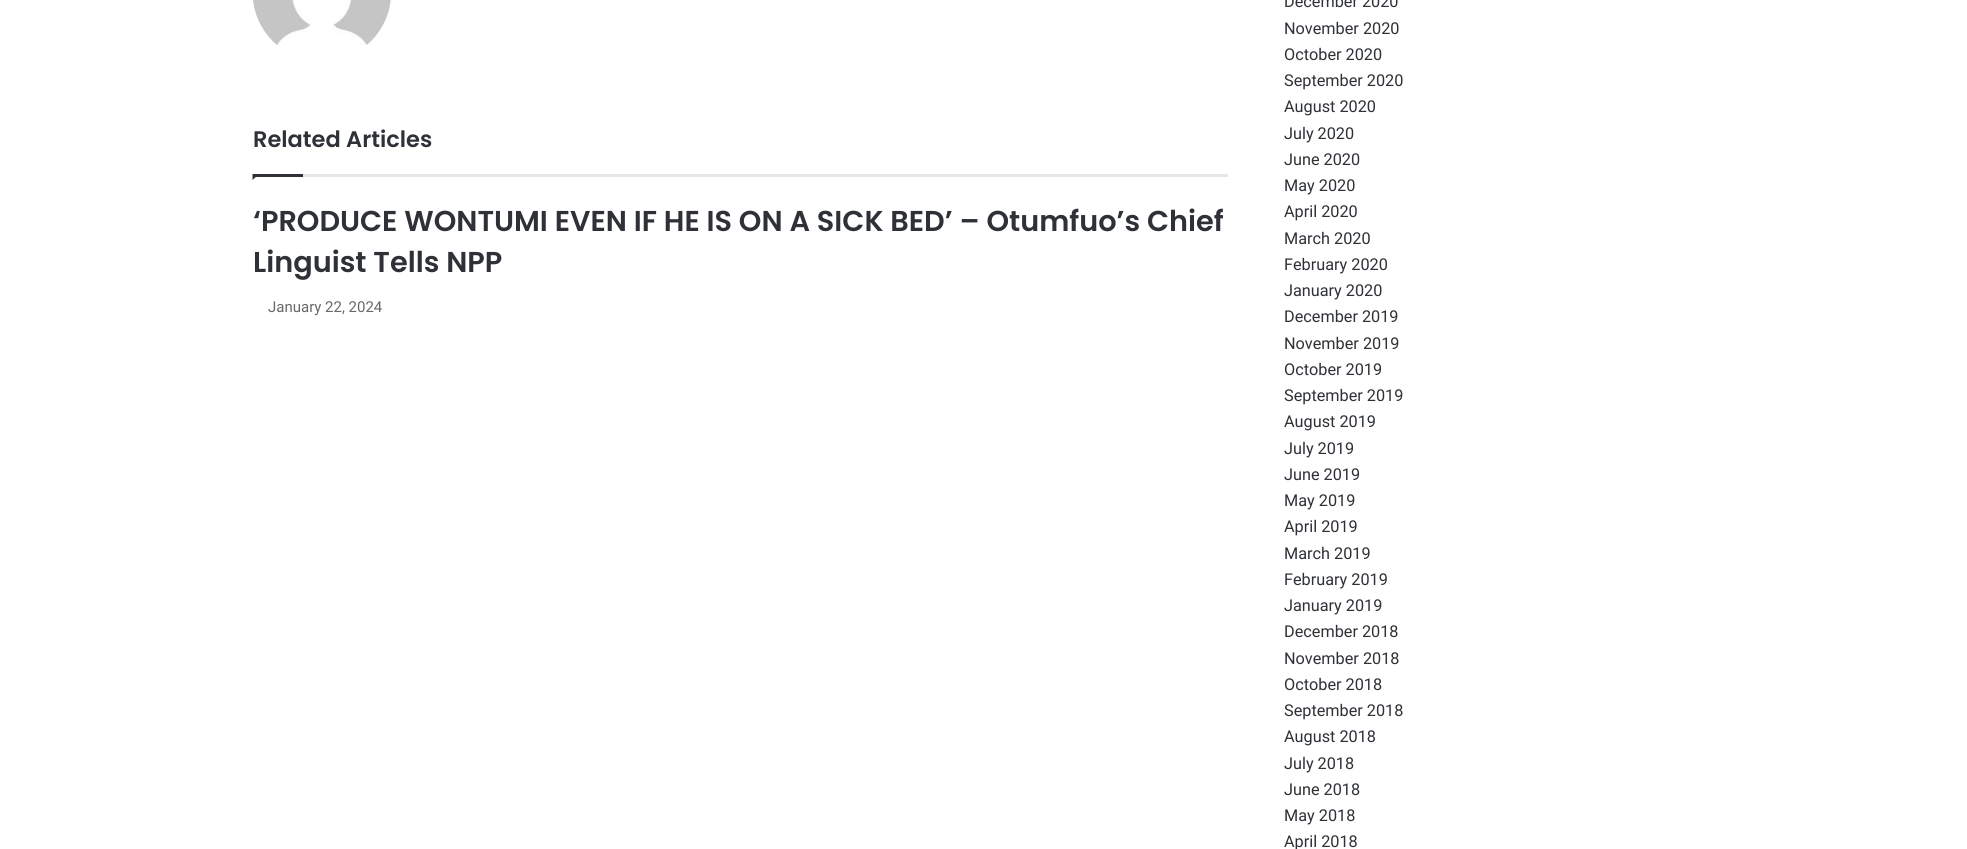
import math
import cairocffi as cairo

surface = cairo.ImageSurface(cairo.FORMAT_RGB24, 1967, 849)
ctx = cairo.Context(surface)
options = cairo.FontOptions()
options.set_hint_metrics(cairo.HINT_METRICS_OFF)
options.set_hint_style(cairo.HINT_STYLE_NONE)
ctx.set_font_options(options)
ctx.set_miter_limit(4)


def rgb(r, g, b):
    ctx.set_source_rgb(r / 255, g / 255, b / 255)


def face(family, size, italic, bold):
    ctx.select_font_face(family, cairo.FONT_SLANT_ITALIC if italic else cairo.FONT_SLANT_NORMAL, cairo.FONT_WEIGHT_BOLD if bold else cairo.FONT_WEIGHT_NORMAL)
    ctx.set_font_size(size)


def label(x, y, s):
    ctx.move_to(x, y)
    ctx.show_text(s)


def rect(x, y, w, h):
    ctx.rectangle(x, y, w, h)
    ctx.fill()


def image(path, x, y, w, h):
    ctx.save()
    ctx.set_source_surface(cairo.ImageSurface.create_from_png(path), x, y)
    ctx.rectangle(x, y, w, h)
    ctx.fill()
    ctx.restore()


rgb(255, 255, 255)
ctx.paint()
image('image0.png', 253, 0, 138, 45)
rgb(230, 230, 230)
rect(303, 174, 925, 3)
face('Poppins SemiBold', 22.5, 0, 0)
rgb(46, 49, 54)
label(253, 147, 'Related Articles')
ctx.new_path()
ctx.move_to(252.5, 174)
ctx.line_to(259, 174)
ctx.line_to(252.5, 180)
ctx.close_path()
ctx.fill()
rect(253, 174, 50, 3)
face('Poppins SemiBold', 28.75, 0, 0)
label(253, 231, '‘PRODUCE WONTUMI EVEN IF HE IS ON A SICK BED’ – Otumfuo’s Chief')
label(253, 272, 'Linguist Tells NPP')
face('Roboto', 15, 0, 0)
rgb(104, 104, 104)
label(268, 312, 'January 22, 2024')
face('Roboto', 16.25, 0, 0)
rgb(46, 49, 54)
label(1284, 7, 'December 2020')
label(1284, 34, 'November 2020')
label(1284, 60, 'October 2020')
label(1284, 86, 'September 2020')
label(1284, 112, 'August 2020')
label(1284, 139, 'July 2020')
label(1284, 165, 'June 2020')
label(1284, 191, 'May 2020')
label(1284, 217, 'April 2020')
label(1284, 244, 'March 2020')
label(1284, 270, 'February 2020')
label(1284, 296, 'January 2020')
label(1284, 322, 'December 2019')
label(1284, 349, 'November 2019')
label(1284, 375, 'October 2019')
label(1284, 401, 'September 2019')
label(1284, 427, 'August 2019')
label(1284, 454, 'July 2019')
label(1284, 480, 'June 2019')
label(1284, 506, 'May 2019')
label(1284, 532, 'April 2019')
label(1284, 559, 'March 2019')
label(1284, 585, 'February 2019')
label(1284, 611, 'January 2019')
label(1284, 637, 'December 2018')
label(1284, 664, 'November 2018')
label(1284, 690, 'October 2018')
label(1284, 716, 'September 2018')
label(1284, 742, 'August 2018')
label(1284, 769, 'July 2018')
label(1284, 795, 'June 2018')
label(1284, 821, 'May 2018')
label(1284, 847, 'April 2018')
surface.write_to_png('render.png')
